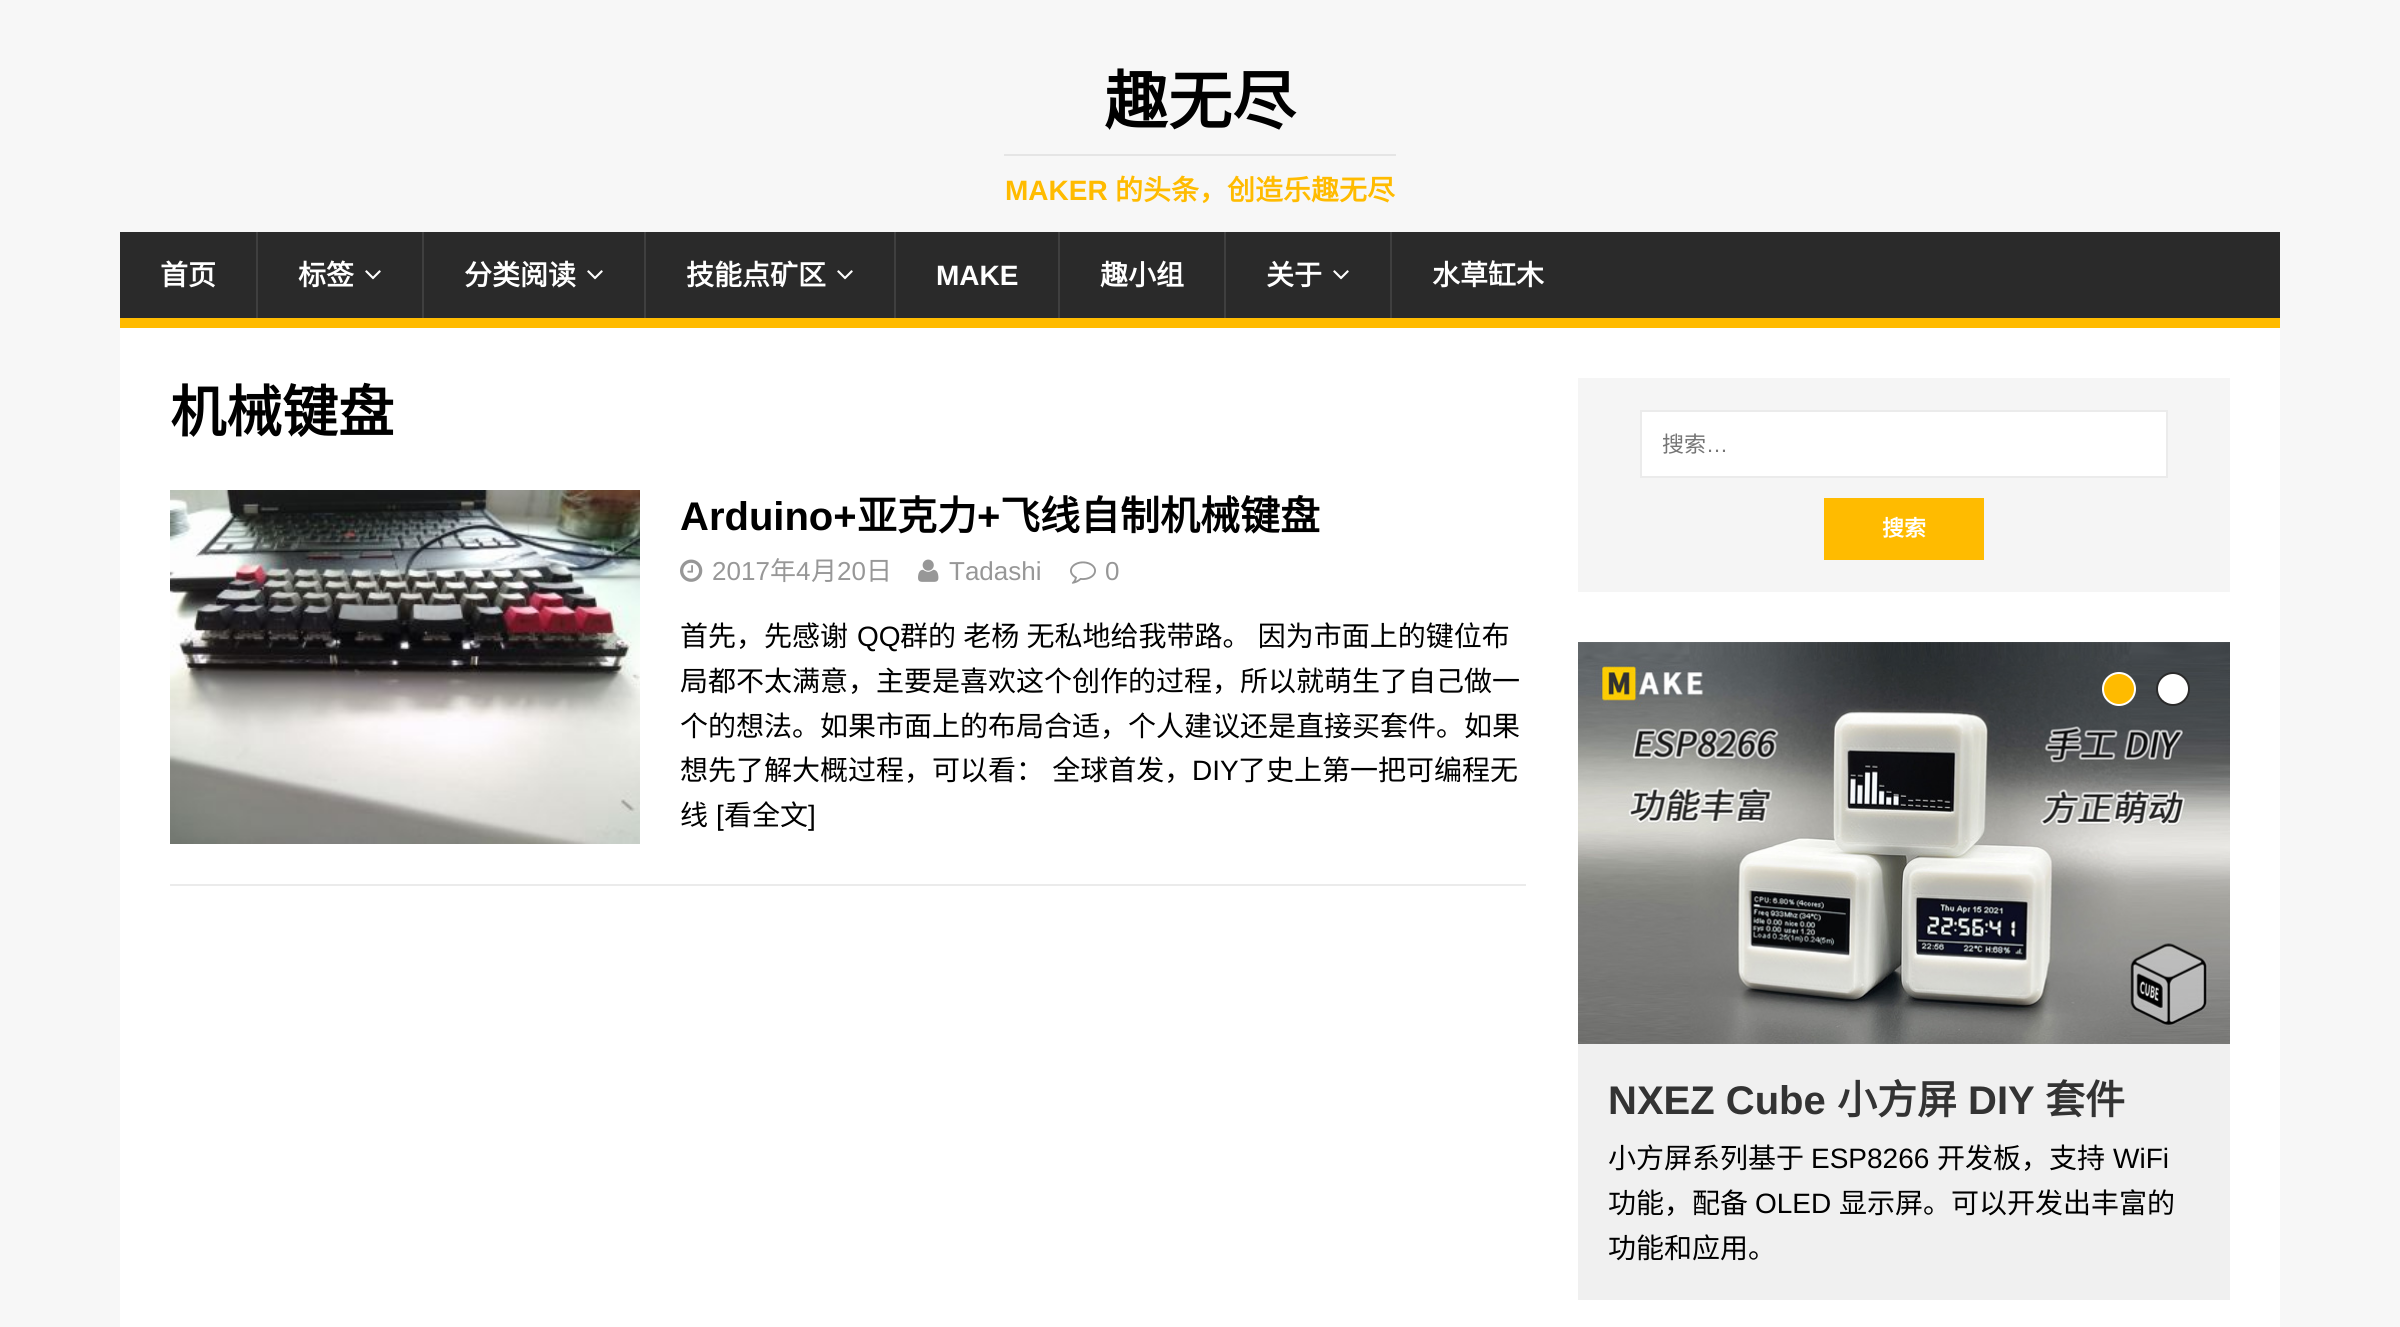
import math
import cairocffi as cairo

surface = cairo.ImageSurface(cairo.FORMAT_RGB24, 2400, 1327)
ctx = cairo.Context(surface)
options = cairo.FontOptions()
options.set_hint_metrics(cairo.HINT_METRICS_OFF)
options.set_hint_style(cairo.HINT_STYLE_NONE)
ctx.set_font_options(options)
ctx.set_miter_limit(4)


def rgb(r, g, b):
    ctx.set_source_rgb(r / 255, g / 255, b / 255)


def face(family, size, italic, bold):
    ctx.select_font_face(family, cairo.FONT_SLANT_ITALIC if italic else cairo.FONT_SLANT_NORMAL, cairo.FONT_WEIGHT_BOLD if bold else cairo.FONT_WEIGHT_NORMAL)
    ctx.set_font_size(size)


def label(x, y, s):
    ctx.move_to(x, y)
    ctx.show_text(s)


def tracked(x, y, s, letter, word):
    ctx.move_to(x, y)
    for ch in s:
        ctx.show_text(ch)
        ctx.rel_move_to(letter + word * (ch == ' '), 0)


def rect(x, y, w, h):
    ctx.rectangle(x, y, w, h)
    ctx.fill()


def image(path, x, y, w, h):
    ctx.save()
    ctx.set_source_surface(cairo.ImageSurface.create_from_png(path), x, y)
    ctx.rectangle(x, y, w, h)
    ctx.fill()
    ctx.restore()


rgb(247, 247, 247)
ctx.paint()
face('Noto Sans CJK SC', 64, 0, 1)
rgb(0, 0, 0)
label(1104, 124, '趣无尽')
rgb(229, 229, 229)
rect(1004, 154, 392, 2)
face('Liberation Sans', 28, 0, 1)
rgb(255, 187, 0)
label(1005, 200, 'MAKER')
face('Noto Sans CJK SC', 28, 0, 1)
label(1115, 200, '的头条，创造乐趣无尽')
rgb(42, 42, 42)
rect(120, 232, 2160, 86)
rgb(255, 187, 0)
rect(120, 318, 2160, 10)
rgb(255, 255, 255)
label(160, 285, '首页')
rgb(63, 63, 63)
rect(256, 232, 2, 86)
rgb(255, 255, 255)
label(298, 285, '标签')
image('image0.png', 365, 270, 16, 10)
rgb(63, 63, 63)
rect(422, 232, 2, 86)
rgb(255, 255, 255)
label(464, 285, '分类阅读')
image('image0.png', 587, 270, 16, 10)
rgb(63, 63, 63)
rect(644, 232, 2, 86)
rgb(255, 255, 255)
label(686, 285, '技能点矿区')
image('image0.png', 837, 270, 16, 10)
rgb(63, 63, 63)
rect(894, 232, 2, 86)
face('Liberation Sans', 28, 0, 1)
rgb(255, 255, 255)
label(936, 285, 'MAKE')
rgb(63, 63, 63)
rect(1058, 232, 2, 86)
face('Noto Sans CJK SC', 28, 0, 1)
rgb(255, 255, 255)
label(1100, 285, '趣小组')
rgb(63, 63, 63)
rect(1224, 232, 2, 86)
rgb(255, 255, 255)
label(1266, 285, '关于')
image('image0.png', 1333, 270, 16, 10)
rgb(63, 63, 63)
rect(1390, 232, 2, 86)
rgb(255, 255, 255)
label(1432, 285, '水草缸木')
rect(120, 328, 2160, 999)
face('Noto Sans CJK SC', 56, 0, 1)
rgb(0, 0, 0)
label(170, 432, '机械键盘')
rgb(235, 235, 235)
rect(170, 884, 1356, 2)
image('image1.png', 170, 490, 470, 354)
face('Liberation Sans', 40, 0, 1)
rgb(0, 0, 0)
label(680, 530, 'Arduino+')
face('Noto Sans CJK SC', 40, 0, 1)
label(857, 530, '亚克力')
face('Liberation Sans', 40, 0, 1)
label(977, 530, '+')
face('Noto Sans CJK SC', 40, 0, 1)
label(1000, 530, '飞线自制机械键盘')
image('image2.png', 680, 559, 23, 23)
face('Liberation Sans', 26, 0, 0)
rgb(151, 151, 151)
label(712, 580, '2017')
face('Noto Sans CJK SC', 26, 0, 0)
label(770, 580, '年')
face('Liberation Sans', 26, 0, 0)
label(796, 580, '4')
face('Noto Sans CJK SC', 26, 0, 0)
label(811, 580, '月')
face('Liberation Sans', 26, 0, 0)
label(837, 580, '20')
face('Noto Sans CJK SC', 26, 0, 0)
label(866, 580, '日')
image('image3.png', 918, 559, 21, 23)
face('Liberation Sans', 26, 0, 0)
label(949, 580, 'Tadashi')
image('image4.png', 1070, 561, 26, 23)
label(1105, 580, '0')
face('Noto Sans CJK SC', 28, 0, 0)
rgb(0, 0, 0)
label(680, 646, '首先，先感谢')
face('Liberation Sans', 28, 0, 0)
label(857, 646, 'QQ')
face('Noto Sans CJK SC', 28, 0, 0)
tracked(900, 646, '群的 老杨 无私地给我带路。 因为市面上的键位布', 0, 1)
label(680, 691, '局都不太满意，主要是喜欢这个创作的过程，所以就萌生了自己做一')
label(680, 736, '个的想法。如果市面上的布局合适，个人建议还是直接买套件。如果')
tracked(680, 780, '想先了解大概过程，可以看： 全球首发，', 0, 2)
face('Liberation Sans', 28, 0, 0)
label(1192, 780, 'DIY')
face('Noto Sans CJK SC', 28, 0, 0)
label(1238, 780, '了史上第一把可编程无')
label(680, 825, '线')
face('Liberation Sans', 28, 0, 0)
label(716, 825, '[')
face('Noto Sans CJK SC', 28, 0, 0)
label(724, 825, '看全文')
face('Liberation Sans', 28, 0, 0)
label(808, 825, ']')
rgb(245, 245, 245)
rect(1578, 378, 652, 214)
rgb(255, 255, 255)
ctx.rectangle(1641, 411, 526, 66)
ctx.fill_preserve()
rgb(235, 235, 235)
ctx.stroke()
face('Noto Sans CJK SC', 22, 0, 0)
rgb(117, 117, 117)
label(1662, 452, '搜索')
face('Liberation Sans', 22, 0, 0)
label(1706, 452, '…')
rgb(255, 187, 0)
rect(1824, 498, 160, 62)
face('Noto Sans CJK SC', 22, 0, 1)
rgb(255, 255, 255)
label(1882, 536, '搜索')
image('image5.png', 1578, 642, 652, 402)
rgb(255, 187, 0)
ctx.arc(2119, 689, 16, 0, 2 * math.pi)
ctx.fill_preserve()
rgb(255, 255, 255)
ctx.stroke()
ctx.arc(2173, 689, 16, 0, 2 * math.pi)
ctx.fill_preserve()
rgb(42, 42, 42)
ctx.stroke()
rgb(240, 240, 240)
rect(1578, 1044, 652, 256)
face('Liberation Sans', 40, 0, 1)
rgb(51, 51, 51)
label(1608, 1114, 'NXEZ Cube')
face('Noto Sans CJK SC', 40, 0, 1)
label(1837, 1114, '小方屏')
face('Liberation Sans', 40, 0, 1)
label(1968, 1114, 'DIY')
face('Noto Sans CJK SC', 40, 0, 1)
label(2045, 1114, '套件')
face('Noto Sans CJK SC', 28, 0, 0)
rgb(0, 0, 0)
label(1608, 1168, '小方屏系列基于')
face('Liberation Sans', 28, 0, 0)
label(1811, 1168, 'ESP8266')
face('Noto Sans CJK SC', 28, 0, 0)
label(1937, 1168, '开发板，支持')
face('Liberation Sans', 28, 0, 0)
label(2113, 1168, 'WiFi')
face('Noto Sans CJK SC', 28, 0, 0)
label(1608, 1213, '功能，配备')
face('Liberation Sans', 28, 0, 0)
label(1755, 1213, 'OLED')
face('Noto Sans CJK SC', 28, 0, 0)
label(1839, 1213, '显示屏。可以开发出丰富的')
label(1608, 1258, '功能和应用。')
surface.write_to_png('render.png')
